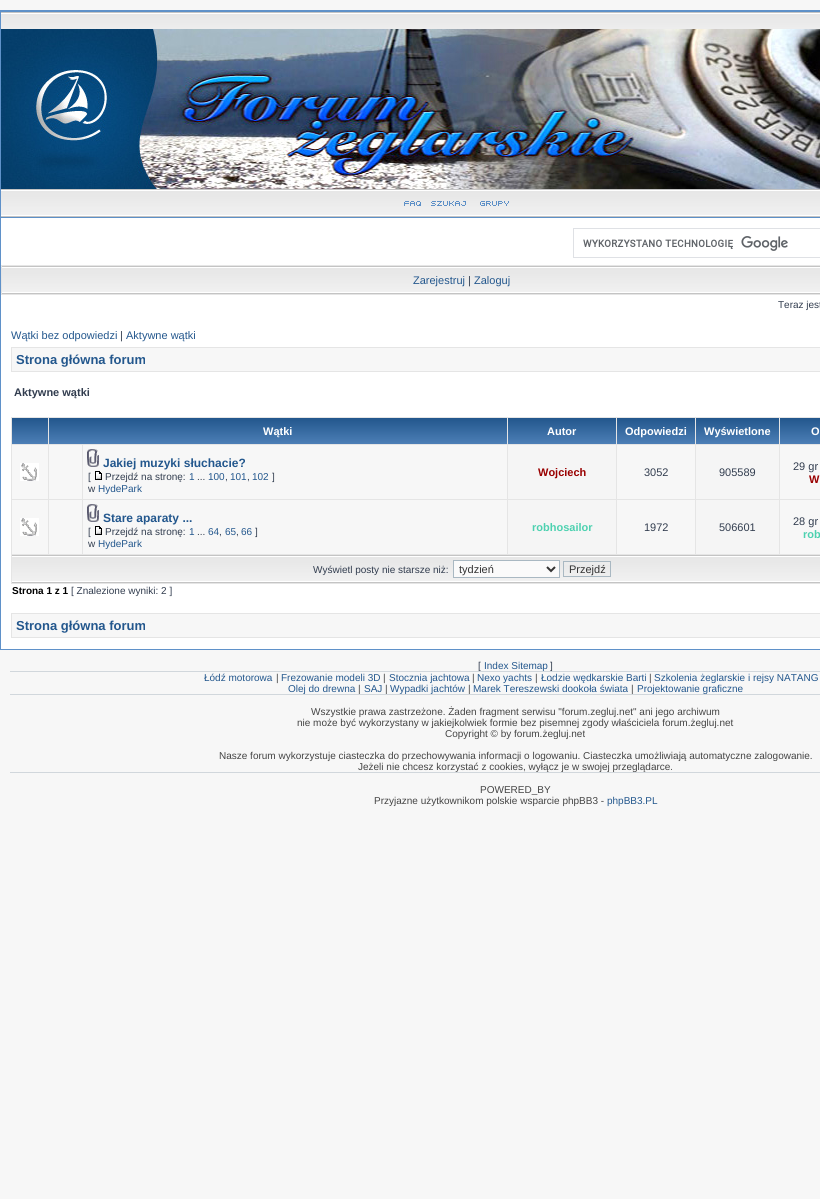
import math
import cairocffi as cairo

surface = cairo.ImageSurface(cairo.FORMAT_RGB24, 820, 1199)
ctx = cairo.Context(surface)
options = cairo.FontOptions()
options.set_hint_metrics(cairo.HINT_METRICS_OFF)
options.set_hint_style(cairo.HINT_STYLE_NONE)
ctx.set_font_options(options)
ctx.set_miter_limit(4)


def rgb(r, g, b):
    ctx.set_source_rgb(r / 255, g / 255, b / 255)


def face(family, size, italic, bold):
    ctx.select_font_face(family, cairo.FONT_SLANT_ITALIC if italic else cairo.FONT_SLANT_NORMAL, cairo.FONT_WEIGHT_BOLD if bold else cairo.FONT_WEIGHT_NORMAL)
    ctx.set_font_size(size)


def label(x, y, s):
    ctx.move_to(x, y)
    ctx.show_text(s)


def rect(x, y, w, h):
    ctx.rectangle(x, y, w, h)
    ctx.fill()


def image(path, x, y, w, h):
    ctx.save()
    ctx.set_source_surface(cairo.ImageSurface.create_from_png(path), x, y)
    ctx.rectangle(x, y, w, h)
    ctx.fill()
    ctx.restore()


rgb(247, 247, 247)
ctx.paint()
rgb(255, 255, 255)
rect(1, 218, 819, 431)
ctx.rectangle(0.5, 10.5, 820, 639)
rgb(95, 145, 201)
ctx.set_line_width(1)
ctx.stroke()
image('image0.png', 1, 11, 819, 18)
image('image1.png', 1, 29, 819, 160)
image('image2.png', 1, 189, 819, 29)
image('image3.png', 404, 201, 17, 5)
image('image4.png', 431, 201, 35, 5)
image('image5.png', 480, 201, 29, 5)
ctx.rectangle(573.5, 228.5, 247, 29)
rgb(223, 225, 229)
ctx.stroke()
image('image6.png', 583, 236, 205, 15)
rgb(229, 229, 229)
rect(1, 265, 819, 30)
image('image7.png', 2, 266, 818, 28)
face('Liberation Sans', 11, 0, 0)
rgb(35, 87, 141)
label(413, 284, 'Zarejestruj')
rgb(50, 61, 79)
label(468, 284, '|')
rgb(35, 87, 141)
label(474, 284, 'Zaloguj')
face('Liberation Sans', 10, 0, 0)
rgb(50, 61, 79)
label(778, 308, 'Teraz jest')
face('Liberation Sans', 11, 0, 0)
rgb(35, 87, 141)
label(11, 339, 'Wątki bez odpowiedzi')
rgb(50, 61, 79)
label(120, 339, '|')
rgb(35, 87, 141)
label(126, 339, 'Aktywne wątki')
rgb(229, 229, 229)
rect(11, 347, 809, 25)
rgb(247, 247, 247)
rect(12, 348, 808, 23)
face('Liberation Sans', 13, 0, 1)
rgb(35, 87, 141)
label(16, 364, 'Strona główna forum')
face('Liberation Sans', 11, 0, 1)
rgb(50, 61, 79)
label(14, 396, 'Aktywne wątki')
rgb(229, 229, 229)
rect(11, 417, 809, 167)
image('image8.png', 12, 418, 36, 26)
image('image9.png', 49, 418, 458, 26)
rgb(255, 255, 255)
label(263, 435, 'Wątki')
image('image10.png', 508, 418, 108, 26)
label(547, 435, 'Autor')
image('image11.png', 617, 418, 78, 26)
label(625, 435, 'Odpowiedzi')
image('image12.png', 696, 418, 83, 26)
label(704, 435, 'Wyświetlone')
image('image13.png', 780, 418, 40, 26)
label(811, 435, 'O')
rgb(247, 247, 247)
rect(12, 445, 36, 54)
image('image14.png', 20, 463, 19, 18)
rect(49, 445, 33, 54)
rect(83, 445, 424, 54)
image('image15.png', 87, 449, 12, 18)
face('Liberation Sans', 12, 0, 1)
rgb(35, 87, 141)
label(103, 467, 'Jakiej muzyki słuchacie?')
face('Liberation Sans', 10, 0, 0)
rgb(50, 61, 79)
label(88, 480, '[')
image('image16.png', 95, 471, 7, 9)
label(105, 480, 'Przejdź na stronę:')
rgb(35, 87, 141)
label(189, 480, '1')
rgb(50, 61, 79)
label(197, 480, '...')
rgb(35, 87, 141)
label(208, 480, '100')
rgb(50, 61, 79)
label(225, 480, ',')
rgb(35, 87, 141)
label(230, 480, '101')
rgb(50, 61, 79)
label(247, 480, ',')
rgb(35, 87, 141)
label(252, 480, '102')
rgb(50, 61, 79)
label(272, 480, ']')
label(88, 492, 'w')
rgb(35, 87, 141)
label(98, 492, 'HydePark')
rgb(245, 245, 245)
rect(508, 445, 108, 54)
face('Liberation Sans', 11, 0, 1)
rgb(153, 0, 0)
label(538, 476, 'Wojciech')
rgb(247, 247, 247)
rect(617, 445, 78, 54)
face('Liberation Sans', 11, 0, 0)
rgb(50, 61, 79)
label(644, 476, '3052')
rgb(245, 245, 245)
rect(696, 445, 83, 54)
rgb(50, 61, 79)
label(719, 476, '905589')
rgb(247, 247, 247)
rect(780, 445, 40, 54)
rgb(50, 61, 79)
label(793, 470, '29 gr')
face('Liberation Sans', 11, 0, 1)
rgb(153, 0, 0)
label(809, 483, 'W')
rgb(247, 247, 247)
rect(12, 500, 36, 54)
image('image14.png', 20, 518, 19, 18)
rect(49, 500, 33, 54)
rect(83, 500, 424, 54)
image('image15.png', 87, 504, 12, 18)
face('Liberation Sans', 12, 0, 1)
rgb(35, 87, 141)
label(103, 522, 'Stare aparaty ...')
face('Liberation Sans', 10, 0, 0)
rgb(50, 61, 79)
label(88, 535, '[')
image('image16.png', 95, 526, 7, 9)
label(105, 535, 'Przejdź na stronę:')
rgb(35, 87, 141)
label(189, 535, '1')
rgb(50, 61, 79)
label(197, 535, '...')
rgb(35, 87, 141)
label(208, 535, '64')
rgb(50, 61, 79)
label(219, 535, ',')
rgb(35, 87, 141)
label(225, 535, '65')
rgb(50, 61, 79)
label(236, 535, ',')
rgb(35, 87, 141)
label(241, 535, '66')
rgb(50, 61, 79)
label(255, 535, ']')
label(88, 547, 'w')
rgb(35, 87, 141)
label(98, 547, 'HydePark')
rgb(245, 245, 245)
rect(508, 500, 108, 54)
face('Liberation Sans', 11, 0, 1)
rgb(77, 209, 176)
label(532, 531, 'robhosailor')
rgb(247, 247, 247)
rect(617, 500, 78, 54)
face('Liberation Sans', 11, 0, 0)
rgb(50, 61, 79)
label(644, 531, '1972')
rgb(245, 245, 245)
rect(696, 500, 83, 54)
rgb(50, 61, 79)
label(719, 531, '506601')
rgb(247, 247, 247)
rect(780, 500, 40, 54)
rgb(50, 61, 79)
label(793, 525, '28 gr')
face('Liberation Sans', 11, 0, 1)
rgb(77, 209, 176)
label(803, 538, 'rob')
image('image17.png', 12, 555, 808, 28)
face('Liberation Sans', 10, 0, 0)
rgb(50, 61, 79)
label(313, 573, 'Wyświetl posty nie starsze niż:')
rgb(250, 250, 250)
ctx.rectangle(453.5, 560.5, 106, 17)
ctx.fill_preserve()
rgb(169, 184, 194)
ctx.stroke()
ctx.new_path()
ctx.move_to(547, 567)
ctx.line_to(551, 571)
ctx.line_to(555, 567)
rgb(51, 51, 51)
ctx.set_line_width(2)
ctx.stroke()
face('Liberation Sans', 11, 0, 0)
label(459, 573, 'tydzień')
rgb(236, 236, 236)
rect(564, 562, 46, 3)
ctx.rectangle(563.5, 561.5, 47, 15)
rgb(169, 184, 194)
ctx.set_line_width(1)
ctx.stroke()
rgb(51, 51, 51)
label(569, 573, 'Przejdź')
face('Liberation Sans', 10, 0, 1)
rgb(0, 0, 0)
label(12, 594, 'Strona 1 z 1')
face('Liberation Sans', 10, 0, 0)
rgb(50, 61, 79)
label(71, 594, '[ Znalezione wyniki: 2 ]')
rgb(229, 229, 229)
rect(11, 613, 809, 25)
rgb(247, 247, 247)
rect(12, 614, 808, 23)
face('Liberation Sans', 13, 0, 1)
rgb(35, 87, 141)
label(16, 630, 'Strona główna forum')
face('Liberation Sans', 10, 0, 0)
rgb(50, 61, 79)
label(478, 669, '[')
rgb(35, 87, 141)
label(484, 669, 'Index Sitemap')
rgb(50, 61, 79)
label(550, 669, ']')
rgb(209, 215, 220)
rect(10, 671, 810, 1)
rgb(35, 87, 141)
label(204, 681, 'Łódź motorowa')
rgb(68, 68, 68)
label(276, 681, '|')
rgb(35, 87, 141)
label(281, 681, 'Frezowanie modeli 3D')
rgb(68, 68, 68)
label(383, 681, '|')
rgb(35, 87, 141)
label(389, 681, 'Stocznia jachtowa')
rgb(68, 68, 68)
label(472, 681, '|')
rgb(35, 87, 141)
label(477, 681, 'Nexo yachts')
rgb(68, 68, 68)
label(535, 681, '|')
rgb(35, 87, 141)
label(541, 681, 'Łodzie wędkarskie Barti')
rgb(68, 68, 68)
label(649, 681, '|')
rgb(35, 87, 141)
label(654, 681, 'Szkolenia żeglarskie i rejsy NATANG')
label(288, 692, 'Olej do drewna')
rgb(68, 68, 68)
label(358, 692, '|')
rgb(35, 87, 141)
label(364, 692, 'SAJ')
rgb(68, 68, 68)
label(385, 692, '|')
rgb(35, 87, 141)
label(390, 692, 'Wypadki jachtów')
rgb(68, 68, 68)
label(468, 692, '|')
rgb(35, 87, 141)
label(473, 692, 'Marek Tereszewski dookoła świata')
rgb(68, 68, 68)
label(631, 692, '|')
rgb(35, 87, 141)
label(637, 692, 'Projektowanie graficzne')
rgb(209, 215, 220)
rect(10, 694, 810, 1)
rgb(68, 68, 68)
label(311, 715, 'Wszystkie prawa zastrzeżone. Żaden fragment serwisu "forum.zegluj.net" ani jego archiwum')
label(297, 726, 'nie może być wykorzystany w jakiejkolwiek formie bez pisemnej zgody właściciela forum.żegluj.net')
label(445, 737, 'Copyright © by forum.żegluj.net')
label(219, 759, 'Nasze forum wykorzystuje ciasteczka do przechowywania informacji o logowaniu. Ciasteczka umożliwiają automatyczne zalogowanie.')
label(358, 770, 'Jeżeli nie chcesz korzystać z cookies, wyłącz je w swojej przeglądarce.')
rgb(209, 215, 220)
rect(10, 772, 810, 1)
rgb(68, 68, 68)
label(480, 793, 'POWERED_BY')
label(374, 804, 'Przyjazne użytkownikom polskie wsparcie phpBB3 -')
rgb(35, 87, 141)
label(607, 804, 'phpBB3.PL')
surface.write_to_png('render.png')
